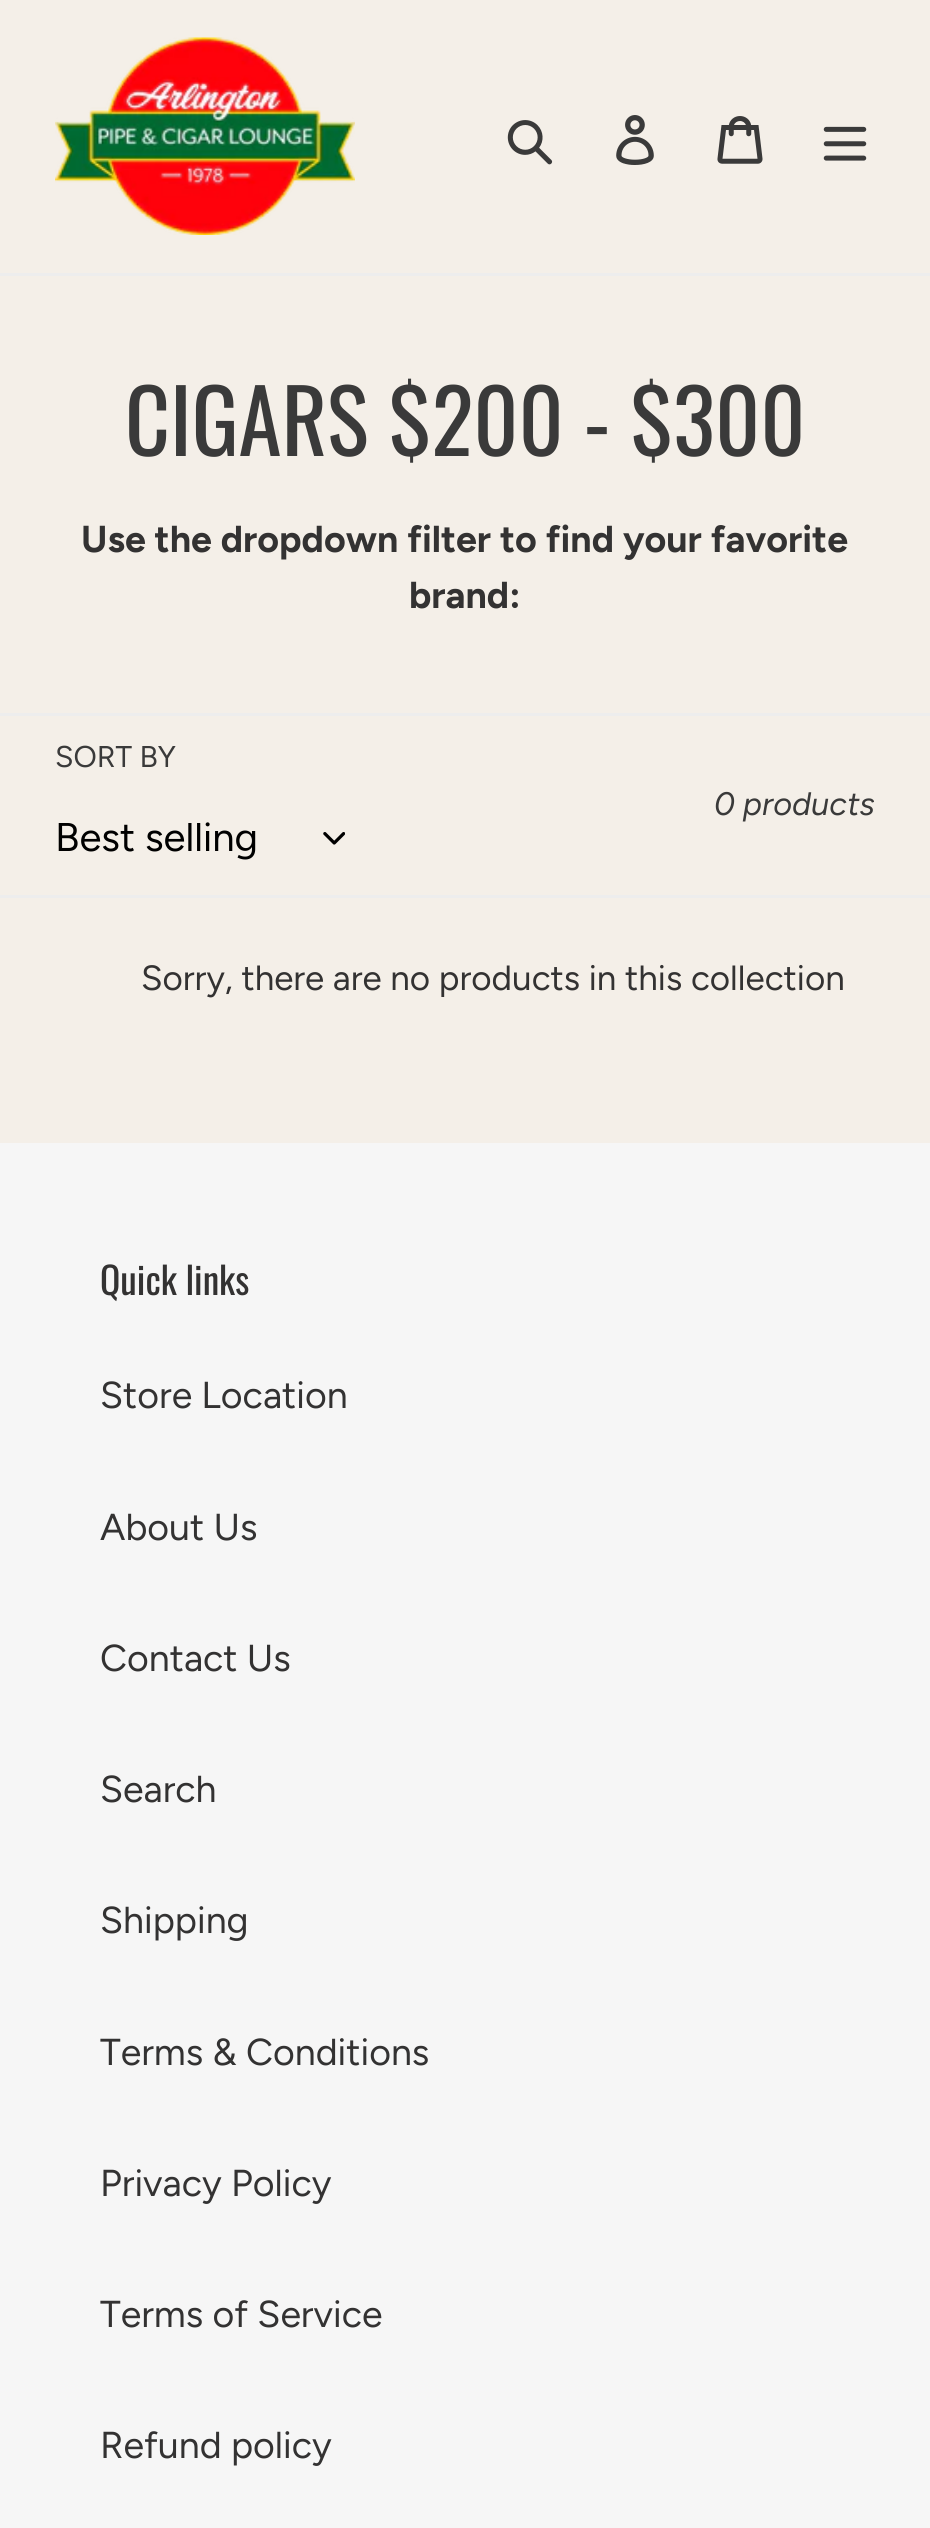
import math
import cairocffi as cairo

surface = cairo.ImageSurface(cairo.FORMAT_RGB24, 930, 2528)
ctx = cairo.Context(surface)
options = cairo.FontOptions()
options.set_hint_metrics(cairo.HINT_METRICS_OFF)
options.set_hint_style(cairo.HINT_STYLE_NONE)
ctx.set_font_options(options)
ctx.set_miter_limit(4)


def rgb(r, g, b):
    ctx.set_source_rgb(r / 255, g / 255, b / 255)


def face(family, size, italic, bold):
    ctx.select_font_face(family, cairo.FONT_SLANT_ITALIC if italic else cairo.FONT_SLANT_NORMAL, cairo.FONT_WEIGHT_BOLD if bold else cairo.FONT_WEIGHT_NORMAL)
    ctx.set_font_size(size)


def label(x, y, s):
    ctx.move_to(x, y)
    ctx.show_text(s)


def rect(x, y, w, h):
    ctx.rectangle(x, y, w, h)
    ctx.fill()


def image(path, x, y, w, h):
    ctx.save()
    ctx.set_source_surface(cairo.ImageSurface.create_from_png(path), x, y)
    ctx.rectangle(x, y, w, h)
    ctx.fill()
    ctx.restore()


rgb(244, 239, 232)
ctx.paint()
rgb(237, 237, 237)
rect(0, 273, 930, 3)
image('image0.png', 55, 37, 300, 198)
image('image1.png', 507, 120, 46, 45)
image('image2.png', 616, 115, 38, 50)
image('image3.png', 717, 116, 46, 48)
image('image4.png', 823, 126, 44, 35)
face('Oswald', 87.5, 0, 0)
rgb(58, 58, 58)
label(125, 456, 'CIGARS $200 - $300')
face('Figtree', 37.5, 0, 1)
rgb(51, 50, 50)
label(81, 552, 'Use the dropdown filter to find your favorite')
label(409, 608, 'brand:')
rgb(237, 237, 237)
rect(0, 713, 930, 3)
rect(0, 895, 930, 3)
face('Figtree', 30, 0, 0)
rgb(58, 58, 58)
label(55, 767, 'SORT BY')
face('Figtree', 40, 0, 0)
rgb(0, 0, 0)
label(55, 851, 'Best selling')
image('image5.png', 323, 832, 22, 13)
face('Figtree', 32.5, 1, 0)
rgb(58, 58, 58)
label(714, 815, '0 products')
face('Figtree', 35, 0, 0)
rgb(51, 50, 50)
label(141, 990, 'Sorry, there are no products in this collection')
rgb(246, 246, 246)
rect(0, 1143, 930, 1385)
face('Oswald', 37.5, 0, 0)
rgb(51, 50, 50)
label(100, 1295, 'Quick links')
face('Figtree', 37.5, 0, 0)
label(100, 1408, 'Store Location')
label(100, 1540, 'About Us')
label(100, 1671, 'Contact Us')
label(100, 1802, 'Search')
label(100, 1933, 'Shipping')
label(100, 2065, 'Terms & Conditions')
label(100, 2196, 'Privacy Policy')
label(100, 2327, 'Terms of Service')
label(100, 2458, 'Refund policy')
surface.write_to_png('render.png')
